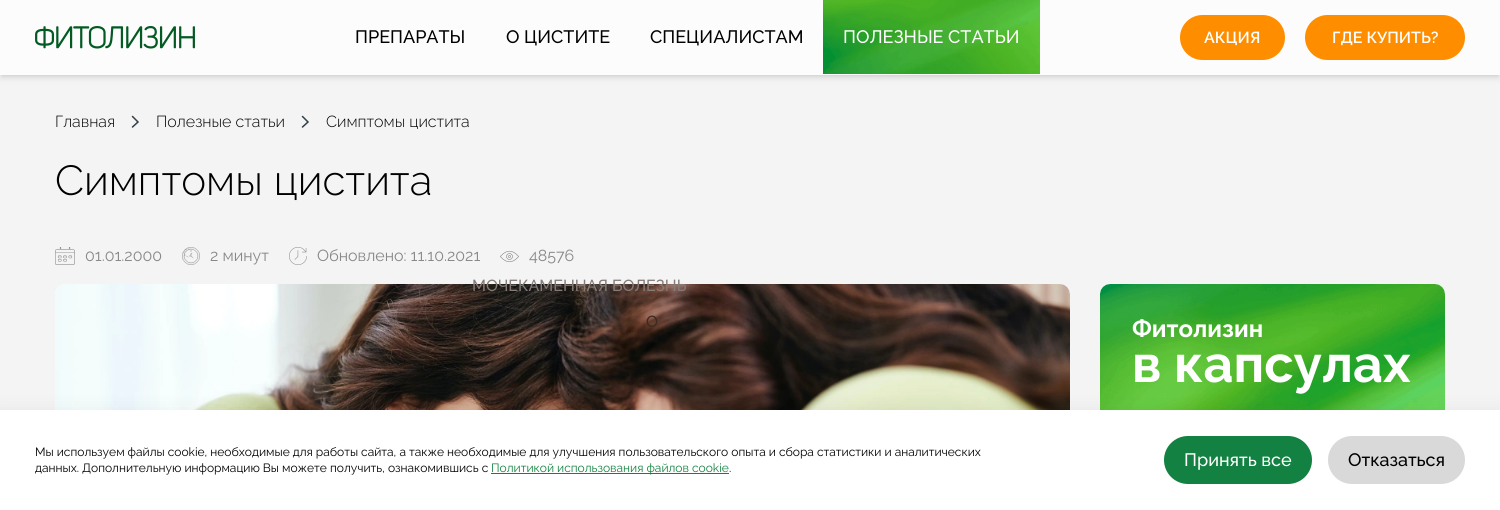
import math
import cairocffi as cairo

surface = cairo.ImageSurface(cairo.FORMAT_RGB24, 1500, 510)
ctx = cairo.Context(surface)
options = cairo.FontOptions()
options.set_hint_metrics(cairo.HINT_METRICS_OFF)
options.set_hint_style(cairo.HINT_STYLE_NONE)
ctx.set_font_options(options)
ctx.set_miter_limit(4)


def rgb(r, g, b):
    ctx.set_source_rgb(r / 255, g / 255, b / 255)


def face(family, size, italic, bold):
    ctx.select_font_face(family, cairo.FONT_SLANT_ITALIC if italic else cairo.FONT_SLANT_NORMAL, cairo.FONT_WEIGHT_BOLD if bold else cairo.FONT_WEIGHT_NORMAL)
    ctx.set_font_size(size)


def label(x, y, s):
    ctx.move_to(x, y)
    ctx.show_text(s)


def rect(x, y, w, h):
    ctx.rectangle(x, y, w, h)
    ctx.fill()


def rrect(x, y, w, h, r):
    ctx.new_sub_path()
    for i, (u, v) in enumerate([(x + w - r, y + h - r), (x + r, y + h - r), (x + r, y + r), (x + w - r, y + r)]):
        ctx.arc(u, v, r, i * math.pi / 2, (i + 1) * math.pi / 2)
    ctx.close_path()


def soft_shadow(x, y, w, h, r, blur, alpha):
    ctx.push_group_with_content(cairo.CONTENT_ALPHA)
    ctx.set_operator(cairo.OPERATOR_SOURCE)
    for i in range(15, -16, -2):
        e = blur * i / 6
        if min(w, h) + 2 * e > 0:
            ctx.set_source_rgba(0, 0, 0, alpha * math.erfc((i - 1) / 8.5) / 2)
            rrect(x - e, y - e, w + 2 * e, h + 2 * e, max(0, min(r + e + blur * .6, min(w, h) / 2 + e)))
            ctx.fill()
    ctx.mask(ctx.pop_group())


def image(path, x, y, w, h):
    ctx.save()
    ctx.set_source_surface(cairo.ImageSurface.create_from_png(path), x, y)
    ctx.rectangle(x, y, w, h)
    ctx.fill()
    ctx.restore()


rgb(244, 244, 244)
ctx.paint()
rgb(0, 0, 0)
soft_shadow(2, 4, 1496, 71, 0, 2, 0.1)
soft_shadow(1, 5, 1498, 73, 0, 3, 0.1)
rgb(252, 252, 252)
rect(0, 0, 1500, 75)
image('image0.png', 35, 26, 160, 23)
face('Raleway Medium', 18, 0, 0)
rgb(0, 0, 0)
label(355, 43, 'ПРЕПАРАТЫ')
label(506, 43, 'О ЦИСТИТЕ')
rgb(255, 255, 255)
rrect(55, 284, 1015, 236, 10)
ctx.fill()
image('image6.png', 55, 284, 1015, 126)
face('Raleway Medium', 16, 0, 0)
rgb(133, 123, 119)
label(472, 291, 'МОЧЕКАМЕННАЯ БОЛЕЗНЬ')
rgb(57, 42, 35)
label(646, 327, 'О')
face('Raleway Medium', 18, 0, 0)
rgb(0, 0, 0)
label(650, 43, 'СПЕЦИАЛИСТАМ')
image('image1.png', 823, 0, 217, 74)
rgb(255, 255, 255)
label(843, 43, 'ПОЛЕЗНЫЕ СТАТЬИ')
rgb(255, 141, 0)
rrect(1180, 15, 105, 45, 22.5)
ctx.fill()
face('Raleway SemiBold', 16, 0, 0)
rgb(255, 255, 255)
label(1204, 43, 'АКЦИЯ')
rgb(255, 141, 0)
rrect(1305, 15, 160, 45, 22.5)
ctx.fill()
rgb(255, 255, 255)
label(1332, 43, 'ГДЕ КУПИТЬ?')
face('Raleway Light', 16, 0, 0)
rgb(0, 0, 0)
label(55, 127, 'Главная')
ctx.new_path()
ctx.move_to(132.5, 116.5)
ctx.line_to(138, 122)
ctx.line_to(132.5, 127)
rgb(50, 62, 72)
ctx.set_line_width(1.5)
ctx.set_line_cap(cairo.LINE_CAP_ROUND)
ctx.stroke()
rgb(0, 0, 0)
label(156, 127, 'Полезные статьи')
ctx.new_path()
ctx.move_to(302.5, 116.5)
ctx.line_to(308, 122)
ctx.line_to(302.5, 127)
rgb(50, 62, 72)
ctx.stroke()
rgb(0, 0, 0)
label(326, 127, 'Симптомы цистита')
face('Raleway Light', 42, 0, 0)
label(55, 195, 'Симптомы цистита')
image('image2.png', 55, 247, 20, 18)
face('Raleway', 16, 0, 0)
rgb(137, 135, 135)
label(85, 261, '01.01.2000')
image('image3.png', 182, 247, 18, 18)
label(210, 261, '2 минут')
image('image4.png', 289, 247, 18, 18)
label(317, 261, 'Обновлено: 11.10.2021')
image('image5.png', 500, 250, 19, 13)
label(529, 261, '48576')
rgb(255, 255, 255)
rrect(1100, 284, 345, 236, 10)
ctx.fill()
image('image7.png', 1100, 284, 345, 126)
face('Raleway', 24, 0, 1)
label(1132, 337, 'Фитолизин')
face('Raleway', 52, 0, 1)
label(1132, 382, 'в капсулах')
rgb(0, 0, 0)
soft_shadow(-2, 408, 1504, 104, 0, 8.5, 0.05)
rgb(255, 255, 255)
rect(0, 410, 1500, 100)
face('Raleway', 12, 0, 0)
rgb(0, 0, 0)
label(35, 456, 'Мы используем файлы cookie, необходимые для работы сайта, а также необходимые для улучшения пользовательского опыта и сбора статистики и аналитических')
label(35, 472, 'данных. Дополнительную информацию Вы можете получить, ознакомившись с')
rgb(17, 131, 61)
rect(491, 473, 238, 1)
label(491, 472, 'Политикой использования файлов cookie')
rgb(0, 0, 0)
label(729, 472, '.')
rgb(19, 129, 65)
rrect(1164, 436, 148, 48, 24)
ctx.fill()
face('Raleway Medium', 18, 0, 0)
rgb(255, 255, 255)
label(1184, 466, 'Принять все')
rgb(217, 217, 217)
rrect(1328, 436, 137, 48, 24)
ctx.fill()
rgb(0, 0, 0)
label(1348, 466, 'Отказаться')
surface.write_to_png('render.png')
